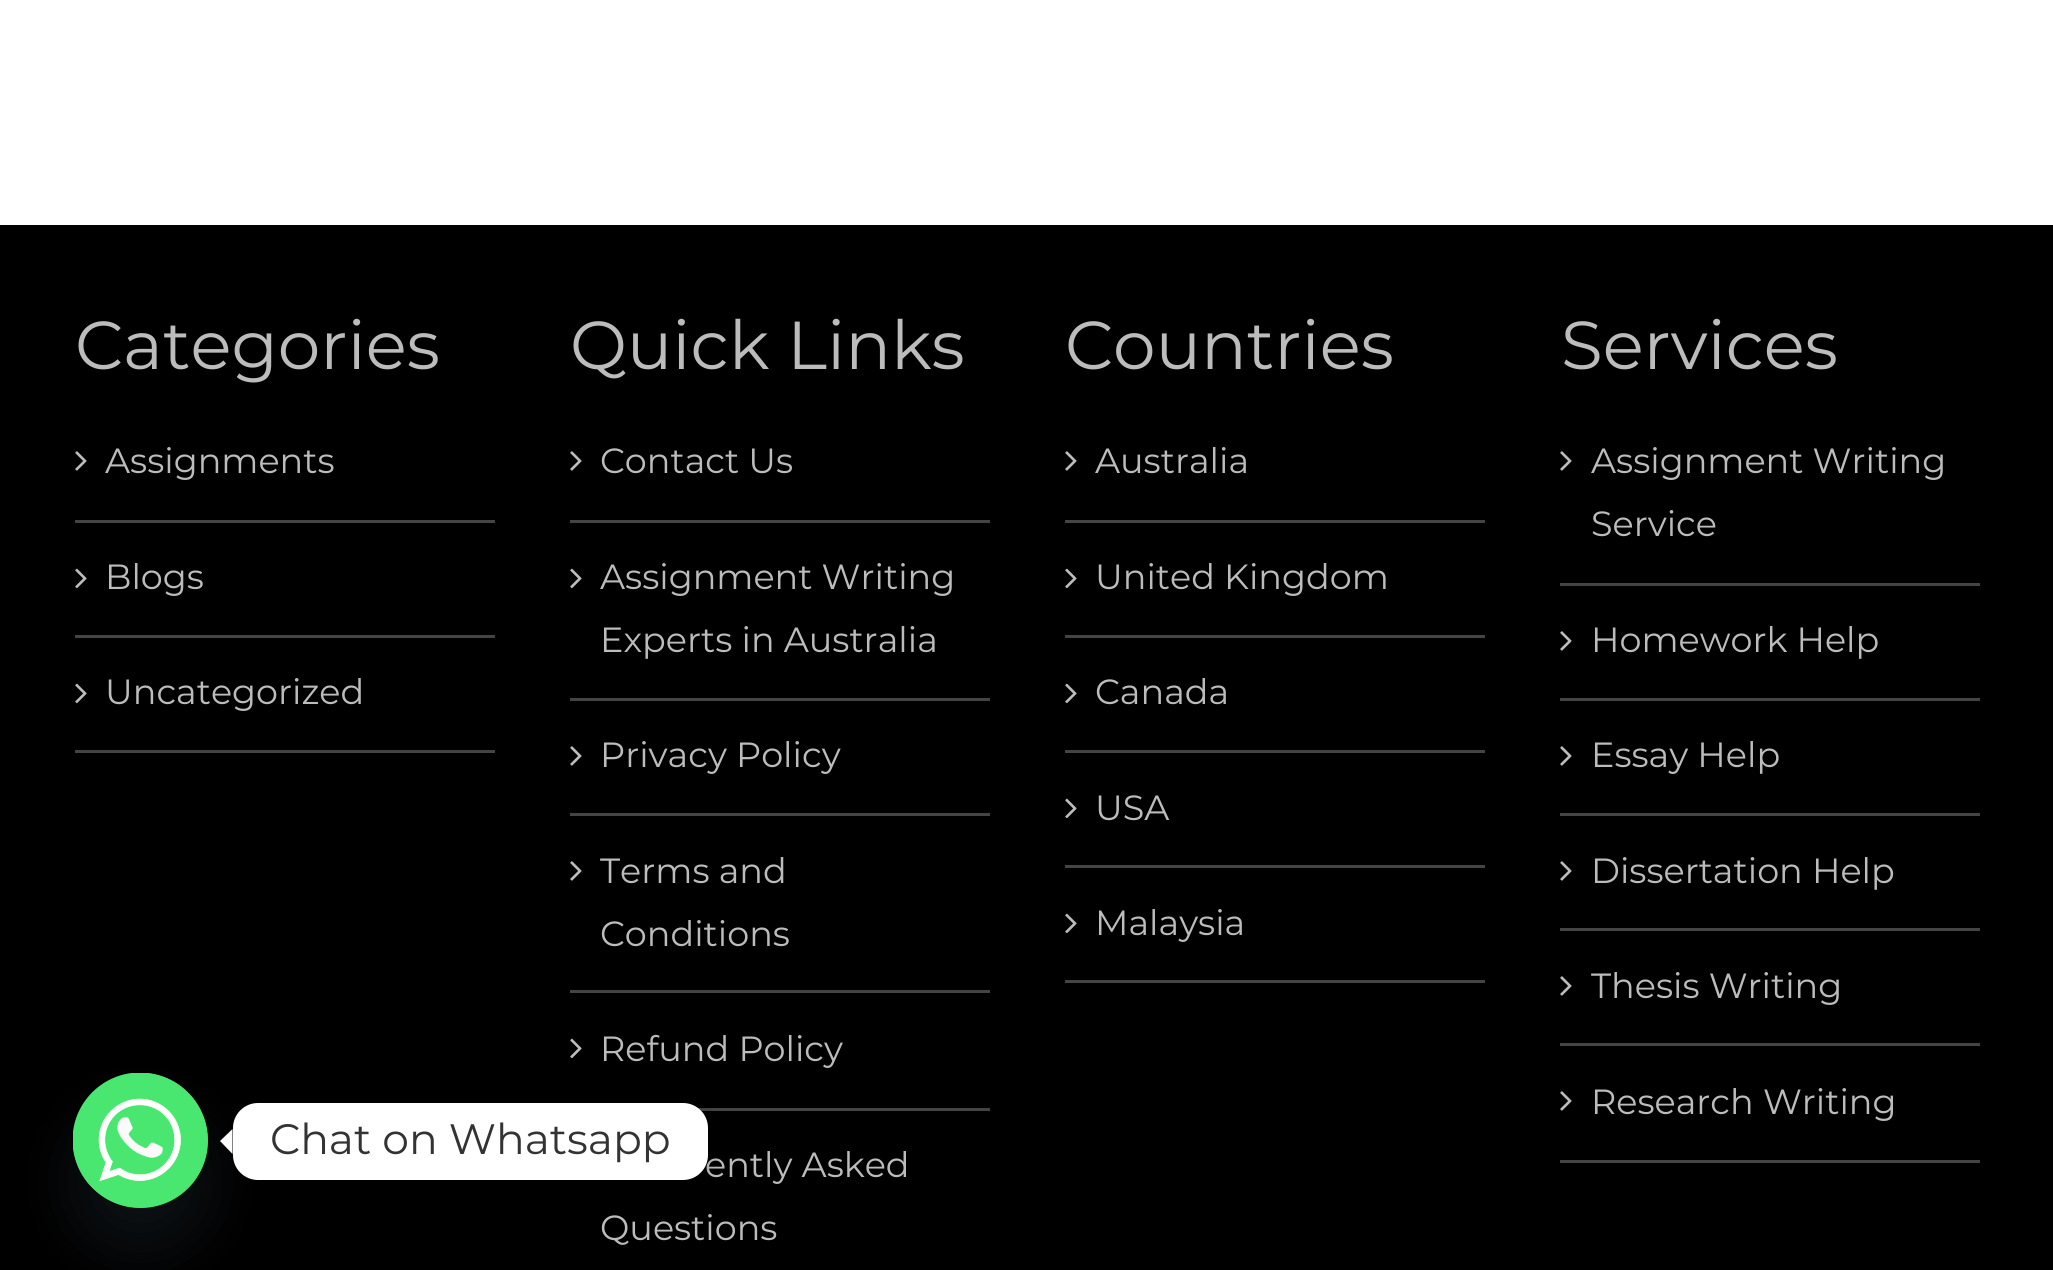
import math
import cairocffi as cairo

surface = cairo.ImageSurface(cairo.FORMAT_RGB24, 2053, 1270)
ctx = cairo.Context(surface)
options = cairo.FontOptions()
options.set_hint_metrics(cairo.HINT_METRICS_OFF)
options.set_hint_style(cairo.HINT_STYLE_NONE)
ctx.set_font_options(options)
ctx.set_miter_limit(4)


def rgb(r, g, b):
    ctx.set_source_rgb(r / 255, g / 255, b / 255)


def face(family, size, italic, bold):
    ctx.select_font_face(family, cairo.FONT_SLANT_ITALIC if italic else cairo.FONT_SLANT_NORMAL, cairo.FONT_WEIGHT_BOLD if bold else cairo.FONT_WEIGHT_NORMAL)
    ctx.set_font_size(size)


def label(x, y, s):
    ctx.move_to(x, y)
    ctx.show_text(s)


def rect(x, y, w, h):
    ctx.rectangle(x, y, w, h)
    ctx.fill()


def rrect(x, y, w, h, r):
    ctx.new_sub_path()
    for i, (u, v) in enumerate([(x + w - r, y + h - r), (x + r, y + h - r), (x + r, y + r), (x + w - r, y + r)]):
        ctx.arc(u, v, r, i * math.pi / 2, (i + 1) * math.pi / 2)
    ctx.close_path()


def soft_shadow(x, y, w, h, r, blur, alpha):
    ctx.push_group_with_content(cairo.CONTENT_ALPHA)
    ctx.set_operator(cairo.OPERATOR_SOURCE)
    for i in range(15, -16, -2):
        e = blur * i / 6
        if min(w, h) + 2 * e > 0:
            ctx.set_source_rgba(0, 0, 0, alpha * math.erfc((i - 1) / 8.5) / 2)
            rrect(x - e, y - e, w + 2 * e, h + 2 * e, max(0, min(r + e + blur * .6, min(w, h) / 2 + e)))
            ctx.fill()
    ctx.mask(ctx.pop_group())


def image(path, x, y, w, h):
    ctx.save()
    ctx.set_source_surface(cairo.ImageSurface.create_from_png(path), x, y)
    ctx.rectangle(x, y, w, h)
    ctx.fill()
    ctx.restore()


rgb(255, 255, 255)
ctx.paint()
rgb(0, 0, 0)
rect(0, 225, 2053, 1045)
face('Montserrat', 67.75, 0, 0)
rgb(188, 188, 188)
label(75, 369, 'Categories')
rgb(68, 68, 68)
rect(75, 520, 420, 3)
image('image0.png', 75, 451, 12, 20)
face('Montserrat', 35, 0, 0)
rgb(188, 188, 188)
label(105, 473, 'Assignments')
rgb(68, 68, 68)
rect(75, 635, 420, 3)
image('image1.png', 75, 568, 12, 21)
rgb(188, 188, 188)
label(105, 589, 'Blogs')
rgb(68, 68, 68)
rect(75, 750, 420, 3)
image('image1.png', 75, 683, 12, 21)
rgb(188, 188, 188)
label(105, 704, 'Uncategorized')
face('Montserrat', 67.75, 0, 0)
label(570, 369, 'Quick Links')
rgb(68, 68, 68)
rect(570, 520, 420, 3)
image('image0.png', 570, 451, 12, 20)
face('Montserrat', 35, 0, 0)
rgb(188, 188, 188)
label(600, 473, 'Contact Us')
rgb(68, 68, 68)
rect(570, 698, 420, 3)
image('image1.png', 570, 568, 12, 21)
rgb(188, 188, 188)
label(600, 589, 'Assignment Writing')
label(600, 652, 'Experts in Australia')
rgb(68, 68, 68)
rect(570, 813, 420, 3)
image('image0.png', 570, 746, 12, 20)
rgb(188, 188, 188)
label(600, 767, 'Privacy Policy')
rgb(68, 68, 68)
rect(570, 990, 420, 3)
image('image0.png', 570, 861, 12, 20)
rgb(188, 188, 188)
label(600, 883, 'Terms and')
label(600, 946, 'Conditions')
rgb(68, 68, 68)
rect(698, 1108, 292, 3)
image('image1.png', 570, 1038, 12, 21)
rgb(188, 188, 188)
label(600, 1061, 'Refund Policy')
label(705, 1177, 'ently Asked')
label(600, 1240, 'Questions')
face('Montserrat', 67.75, 0, 0)
label(1065, 369, 'Countries')
rgb(68, 68, 68)
rect(1065, 520, 420, 3)
image('image0.png', 1065, 451, 12, 20)
face('Montserrat', 35, 0, 0)
rgb(188, 188, 188)
label(1095, 473, 'Australia')
rgb(68, 68, 68)
rect(1065, 635, 420, 3)
image('image1.png', 1065, 568, 12, 21)
rgb(188, 188, 188)
label(1095, 589, 'United Kingdom')
rgb(68, 68, 68)
rect(1065, 750, 420, 3)
image('image1.png', 1065, 683, 12, 21)
rgb(188, 188, 188)
label(1095, 704, 'Canada')
rgb(68, 68, 68)
rect(1065, 865, 420, 3)
image('image1.png', 1065, 798, 12, 21)
rgb(188, 188, 188)
label(1095, 820, 'USA')
rgb(68, 68, 68)
rect(1065, 980, 420, 3)
image('image1.png', 1065, 913, 12, 21)
rgb(188, 188, 188)
label(1095, 935, 'Malaysia')
face('Montserrat', 67.75, 0, 0)
label(1561, 369, 'Services')
rgb(68, 68, 68)
rect(1560, 583, 420, 3)
image('image0.png', 1560, 451, 12, 20)
face('Montserrat', 35, 0, 0)
rgb(188, 188, 188)
label(1591, 473, 'Assignment Writing')
label(1591, 536, 'Service')
rgb(68, 68, 68)
rect(1560, 698, 420, 3)
image('image0.png', 1560, 631, 12, 20)
rgb(188, 188, 188)
label(1591, 652, 'Homework Help')
rgb(68, 68, 68)
rect(1560, 813, 420, 3)
image('image0.png', 1560, 746, 12, 20)
rgb(188, 188, 188)
label(1591, 767, 'Essay Help')
rgb(68, 68, 68)
rect(1560, 928, 420, 3)
image('image0.png', 1560, 861, 12, 20)
rgb(188, 188, 188)
label(1591, 883, 'Dissertation Help')
rgb(68, 68, 68)
rect(1560, 1043, 420, 3)
image('image0.png', 1560, 976, 12, 20)
rgb(188, 188, 188)
label(1591, 998, 'Thesis Writing')
rgb(68, 68, 68)
rect(1560, 1160, 420, 3)
image('image0.png', 1560, 1091, 12, 20)
rgb(188, 188, 188)
label(1591, 1114, 'Research Writing')
rgb(73, 104, 126)
soft_shadow(73, 1113, 135, 135, 67.5, 30, 0.16)
rgb(73, 230, 112)
ctx.arc(140.5, 1140.5, 67.5, 0, 2 * math.pi)
ctx.fill()
image('image2.png', 73, 1073, 135, 135)
ctx.save()
ctx.set_fill_rule(cairo.FILL_RULE_EVEN_ODD)
ctx.new_path()
ctx.move_to(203, 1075)
ctx.line_to(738, 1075)
ctx.line_to(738, 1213)
ctx.line_to(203, 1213)
ctx.close_path()
ctx.move_to(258, 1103)
ctx.line_to(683, 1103)
ctx.curve_to(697, 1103, 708, 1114, 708, 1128)
ctx.line_to(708, 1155)
ctx.curve_to(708, 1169, 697, 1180, 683, 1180)
ctx.line_to(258, 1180)
ctx.curve_to(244, 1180, 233, 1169, 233, 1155)
ctx.line_to(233, 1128)
ctx.curve_to(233, 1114, 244, 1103, 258, 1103)
ctx.close_path()
ctx.clip()
rgb(0, 0, 0)
soft_shadow(233, 1105, 475, 78, 25, 9.5, 0.15)
ctx.restore()
rgb(255, 255, 255)
rrect(233, 1103, 475, 77, 25)
ctx.fill()
ctx.new_path()
ctx.move_to(232.5, 1129)
ctx.line_to(232.5, 1154)
ctx.line_to(220, 1141)
ctx.close_path()
ctx.fill()
face('Montserrat', 42.5, 0, 0)
rgb(51, 51, 51)
label(270, 1154, 'Chat on Whatsapp')
surface.write_to_png('render.png')
